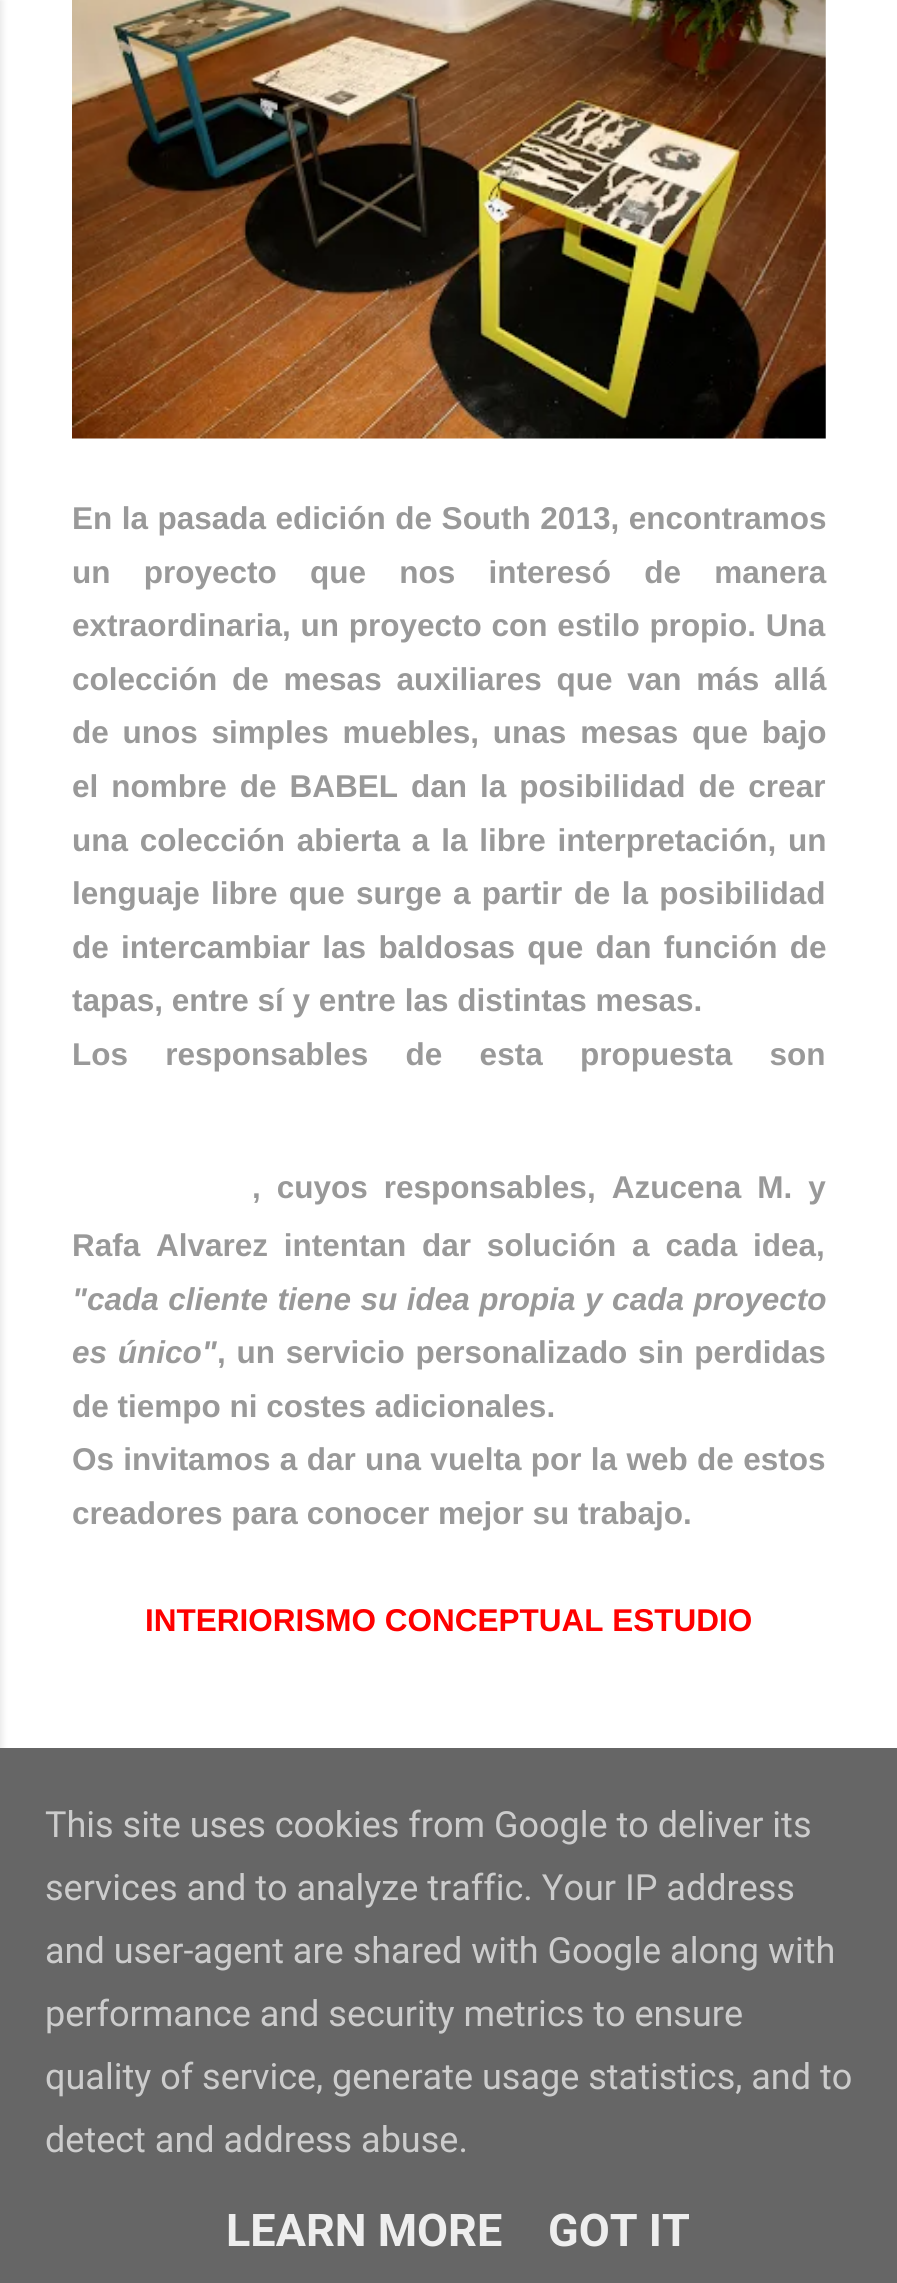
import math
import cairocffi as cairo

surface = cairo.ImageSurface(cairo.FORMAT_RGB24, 897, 2283)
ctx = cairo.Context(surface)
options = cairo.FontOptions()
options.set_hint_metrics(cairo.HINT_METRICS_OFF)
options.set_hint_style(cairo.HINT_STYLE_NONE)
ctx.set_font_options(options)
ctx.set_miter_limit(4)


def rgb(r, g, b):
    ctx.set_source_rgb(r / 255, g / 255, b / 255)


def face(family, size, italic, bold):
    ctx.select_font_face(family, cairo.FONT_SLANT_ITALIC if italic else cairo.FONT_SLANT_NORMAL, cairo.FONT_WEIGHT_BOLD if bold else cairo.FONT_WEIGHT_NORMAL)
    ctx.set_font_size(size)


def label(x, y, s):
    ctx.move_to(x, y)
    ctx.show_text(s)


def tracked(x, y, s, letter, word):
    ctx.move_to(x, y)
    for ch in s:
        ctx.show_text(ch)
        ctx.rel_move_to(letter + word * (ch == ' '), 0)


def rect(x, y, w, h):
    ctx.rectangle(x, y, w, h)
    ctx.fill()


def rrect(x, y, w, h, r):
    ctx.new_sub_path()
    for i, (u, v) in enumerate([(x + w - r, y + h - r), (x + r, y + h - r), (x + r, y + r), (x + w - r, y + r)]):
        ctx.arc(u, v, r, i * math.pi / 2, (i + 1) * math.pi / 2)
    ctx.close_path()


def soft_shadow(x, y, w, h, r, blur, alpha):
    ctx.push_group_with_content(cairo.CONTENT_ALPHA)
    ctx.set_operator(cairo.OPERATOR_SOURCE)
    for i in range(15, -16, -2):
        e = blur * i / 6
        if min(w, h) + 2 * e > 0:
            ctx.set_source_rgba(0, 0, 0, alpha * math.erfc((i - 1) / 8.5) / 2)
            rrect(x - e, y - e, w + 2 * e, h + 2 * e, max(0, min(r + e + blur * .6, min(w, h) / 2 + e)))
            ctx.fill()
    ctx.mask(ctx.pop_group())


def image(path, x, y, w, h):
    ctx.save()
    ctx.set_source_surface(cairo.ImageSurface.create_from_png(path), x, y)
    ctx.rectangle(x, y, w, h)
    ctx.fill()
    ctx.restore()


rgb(255, 255, 255)
ctx.paint()
rgb(0, 0, 0)
soft_shadow(-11, 0, 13, 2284, 0, 3.5, 0.1)
image('image0.png', 72, 0, 754, 439)
face('Liberation Sans', 31.5, 0, 1)
rgb(153, 153, 153)
tracked(72, 529, 'En la pasada edición de South 2013, encontramos', 0, 0.75)
tracked(72, 583, 'un proyecto que nos interesó de manera', 0, 24.5)
tracked(72, 636, 'extraordinaria, un proyecto con estilo propio. Una', 0, 1)
tracked(72, 690, 'colección de mesas auxiliares que van más allá', 0, 6)
tracked(72, 743, 'de unos simples muebles, unas mesas que bajo', 0, 5)
tracked(72, 797, 'el nombre de BABEL dan la posibilidad de crear', 0, 4.25)
tracked(72, 851, 'una colección abierta a la libre interpretación, un', 0, 3)
tracked(72, 904, 'lenguaje libre que surge a partir de la posibilidad', 0, 2.5)
tracked(72, 958, 'de intercambiar las baldosas que dan función de', 0, 3.5)
label(72, 1011, 'tapas, entre sí y entre las distintas mesas.')
tracked(72, 1065, 'Los responsables de esta propuesta son', 0, 28.5)
tracked(252, 1198, ', cuyos responsables, Azucena M. y', 0, 7.25)
tracked(72, 1256, 'Rafa Alvarez intentan dar solución a cada idea,', 0, 7)
face('Liberation Sans', 31.5, 1, 1)
tracked(72, 1310, '"cada cliente tiene su idea propia y cada proyecto', 0, 0.75)
tracked(72, 1363, 'es único"', 0, 2)
face('Liberation Sans', 31.5, 0, 1)
tracked(217, 1363, ', un servicio personalizado sin perdidas', 0, 2)
label(72, 1417, 'de tiempo ni costes adicionales.')
tracked(72, 1470, 'Os invitamos a dar una vuelta por la web de estos', 0, 0.6)
label(72, 1524, 'creadores para conocer mejor su trabajo.')
rgb(255, 0, 0)
label(145, 1631, 'INTERIORISMO CONCEPTUAL ESTUDIO')
rgb(102, 102, 102)
rect(0, 1748, 897, 535)
face('Roboto', 36, 0, 0)
rgb(204, 204, 204)
label(45, 1837, 'This site uses cookies from Google to deliver its')
label(45, 1900, 'services and to analyze traffic. Your IP address')
label(45, 1963, 'and user-agent are shared with Google along with')
label(45, 2026, 'performance and security metrics to ensure')
label(45, 2089, 'quality of service, generate usage statistics, and to')
label(45, 2152, 'detect and address abuse.')
face('Roboto', 45, 0, 1)
rgb(238, 238, 238)
label(226, 2246, 'LEARN MORE')
label(548, 2246, 'GOT IT')
surface.write_to_png('render.png')
